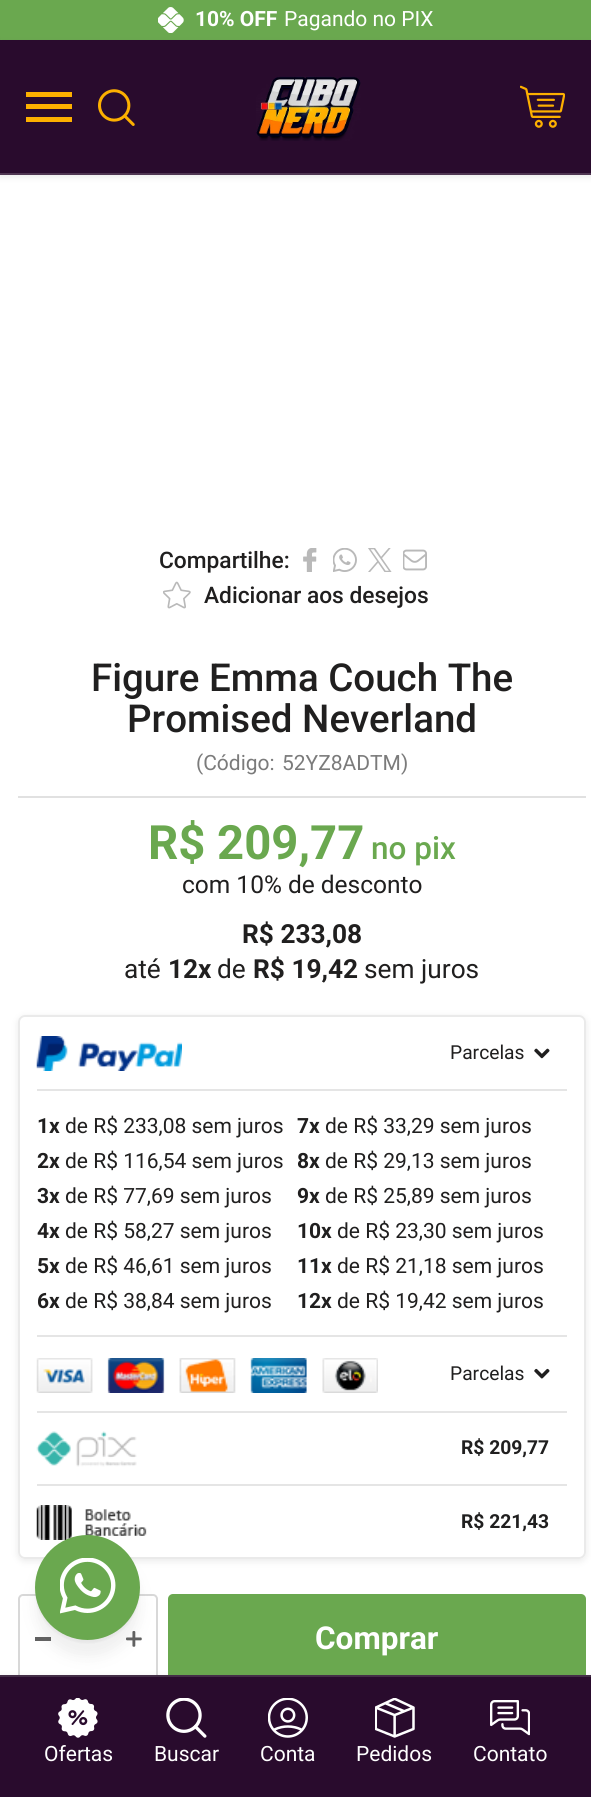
import math
import cairocffi as cairo

surface = cairo.ImageSurface(cairo.FORMAT_RGB24, 591, 1797)
ctx = cairo.Context(surface)
options = cairo.FontOptions()
options.set_hint_metrics(cairo.HINT_METRICS_OFF)
options.set_hint_style(cairo.HINT_STYLE_NONE)
ctx.set_font_options(options)
ctx.set_miter_limit(4)


def rgb(r, g, b):
    ctx.set_source_rgb(r / 255, g / 255, b / 255)


def face(family, size, italic, bold):
    ctx.select_font_face(family, cairo.FONT_SLANT_ITALIC if italic else cairo.FONT_SLANT_NORMAL, cairo.FONT_WEIGHT_BOLD if bold else cairo.FONT_WEIGHT_NORMAL)
    ctx.set_font_size(size)


def label(x, y, s):
    ctx.move_to(x, y)
    ctx.show_text(s)


def rect(x, y, w, h):
    ctx.rectangle(x, y, w, h)
    ctx.fill()


def rrect(x, y, w, h, r):
    ctx.new_sub_path()
    for i, (u, v) in enumerate([(x + w - r, y + h - r), (x + r, y + h - r), (x + r, y + r), (x + w - r, y + r)]):
        ctx.arc(u, v, r, i * math.pi / 2, (i + 1) * math.pi / 2)
    ctx.close_path()


def soft_shadow(x, y, w, h, r, blur, alpha):
    ctx.push_group_with_content(cairo.CONTENT_ALPHA)
    ctx.set_operator(cairo.OPERATOR_SOURCE)
    for i in range(15, -16, -2):
        e = blur * i / 6
        if min(w, h) + 2 * e > 0:
            ctx.set_source_rgba(0, 0, 0, alpha * math.erfc((i - 1) / 8.5) / 2)
            rrect(x - e, y - e, w + 2 * e, h + 2 * e, max(0, min(r + e + blur * .6, min(w, h) / 2 + e)))
            ctx.fill()
    ctx.mask(ctx.pop_group())


def image(path, x, y, w, h):
    ctx.save()
    ctx.set_source_surface(cairo.ImageSurface.create_from_png(path), x, y)
    ctx.rectangle(x, y, w, h)
    ctx.fill()
    ctx.restore()


rgb(255, 255, 255)
ctx.paint()
rgb(106, 168, 79)
rect(0, 0, 591, 40)
image('image0.png', 158, 7, 26, 26)
face('Roboto', 21, 0, 1)
rgb(255, 255, 255)
label(195, 26, '10% OFF')
face('Roboto', 21, 0, 0)
label(284, 26, 'Pagando no PIX')
rgb(82, 82, 82)
soft_shadow(0, 42, 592, 135, 0, 3.5, 0.13)
rgb(41, 11, 45)
rect(0, 40, 591, 133)
rgb(79, 54, 82)
rect(0, 173, 591, 2)
rgb(253, 176, 0)
rect(26, 117, 46, 5)
rect(26, 104, 46, 5)
rect(26, 92, 46, 5)
image('image1.png', 98, 89, 37, 37)
image('image2.png', 256, 76, 105, 65)
image('image3.png', 520, 85, 45, 43)
face('Roboto Medium', 22.75, 0, 0)
rgb(32, 31, 31)
label(159, 568, 'Compartilhe:')
image('image4.png', 303, 548, 14, 24)
image('image5.png', 333, 548, 24, 24)
image('image6.png', 368, 548, 24, 24)
image('image7.png', 403, 549, 24, 22)
image('image8.png', 163, 581, 28, 28)
label(204, 603, 'Adicionar aos desejos')
rgb(225, 225, 225)
rect(18, 796, 568, 2)
face('Roboto Medium', 38.5, 0, 0)
rgb(32, 31, 31)
label(91, 691, 'Figure Emma Couch The')
label(127, 732, 'Promised Neverland')
face('Roboto', 21, 0, 0)
rgb(123, 123, 123)
label(196, 770, '(Código:')
label(282, 770, '52YZ8ADTM)')
face('Roboto', 47.25, 0, 1)
rgb(106, 168, 79)
label(148, 859, 'R$ 209,77')
face('Roboto Medium', 31.5, 0, 0)
label(371, 859, 'no pix')
face('Roboto', 24.5, 0, 0)
rgb(32, 31, 31)
label(182, 893, 'com 10% de desconto')
face('Roboto', 26.25, 0, 1)
label(242, 943, 'R$ 233,08')
face('Roboto', 26.25, 0, 0)
label(124, 978, 'até')
face('Roboto', 26.25, 0, 1)
label(168, 978, '12x')
face('Roboto', 26.25, 0, 0)
label(217, 978, 'de')
face('Roboto', 26.25, 0, 1)
label(253, 978, 'R$ 19,42')
face('Roboto', 26.25, 0, 0)
label(364, 978, 'sem juros')
ctx.save()
ctx.set_fill_rule(cairo.FILL_RULE_EVEN_ODD)
ctx.new_path()
ctx.move_to(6, 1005)
ctx.line_to(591, 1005)
ctx.line_to(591, 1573)
ctx.line_to(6, 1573)
ctx.close_path()
ctx.move_to(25, 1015)
ctx.line_to(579, 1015)
ctx.curve_to(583, 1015, 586, 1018, 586, 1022)
ctx.line_to(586, 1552)
ctx.curve_to(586, 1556, 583, 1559, 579, 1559)
ctx.line_to(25, 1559)
ctx.curve_to(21, 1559, 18, 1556, 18, 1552)
ctx.line_to(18, 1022)
ctx.curve_to(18, 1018, 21, 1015, 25, 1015)
ctx.close_path()
ctx.clip()
rgb(177, 177, 177)
soft_shadow(18, 1017, 568, 544, 7, 3.5, 0.28)
ctx.restore()
rrect(19, 1016, 566, 542, 6)
rgb(234, 234, 234)
ctx.stroke()
image('image9.png', 36, 1036, 146, 35)
face('Roboto', 19.25, 0, 0)
rgb(32, 31, 31)
label(450, 1059, 'Parcelas')
image('image10.png', 534, 1048, 16, 11)
rgb(229, 229, 229)
rect(37, 1089, 530, 2)
face('Roboto', 21, 0, 1)
rgb(32, 31, 31)
label(37, 1133, '1x')
face('Roboto', 21, 0, 0)
label(65, 1133, 'de R$ 233,08 sem juros')
face('Roboto', 21, 0, 1)
label(37, 1168, '2x')
face('Roboto', 21, 0, 0)
label(65, 1168, 'de R$ 116,54 sem juros')
face('Roboto', 21, 0, 1)
label(37, 1203, '3x')
face('Roboto', 21, 0, 0)
label(65, 1203, 'de R$ 77,69 sem juros')
face('Roboto', 21, 0, 1)
label(37, 1238, '4x')
face('Roboto', 21, 0, 0)
label(65, 1238, 'de R$ 58,27 sem juros')
face('Roboto', 21, 0, 1)
label(37, 1273, '5x')
face('Roboto', 21, 0, 0)
label(65, 1273, 'de R$ 46,61 sem juros')
face('Roboto', 21, 0, 1)
label(37, 1308, '6x')
face('Roboto', 21, 0, 0)
label(65, 1308, 'de R$ 38,84 sem juros')
face('Roboto', 21, 0, 1)
label(297, 1133, '7x')
face('Roboto', 21, 0, 0)
label(325, 1133, 'de R$ 33,29 sem juros')
face('Roboto', 21, 0, 1)
label(297, 1168, '8x')
face('Roboto', 21, 0, 0)
label(325, 1168, 'de R$ 29,13 sem juros')
face('Roboto', 21, 0, 1)
label(297, 1203, '9x')
face('Roboto', 21, 0, 0)
label(325, 1203, 'de R$ 25,89 sem juros')
face('Roboto', 21, 0, 1)
label(297, 1238, '10x')
face('Roboto', 21, 0, 0)
label(337, 1238, 'de R$ 23,30 sem juros')
face('Roboto', 21, 0, 1)
label(297, 1273, '11x')
face('Roboto', 21, 0, 0)
label(337, 1273, 'de R$ 21,18 sem juros')
face('Roboto', 21, 0, 1)
label(297, 1308, '12x')
face('Roboto', 21, 0, 0)
label(337, 1308, 'de R$ 19,42 sem juros')
rgb(229, 229, 229)
rect(37, 1335, 530, 2)
image('image11.png', 36, 1358, 342, 35)
face('Roboto', 19.25, 0, 0)
rgb(32, 31, 31)
label(450, 1380, 'Parcelas')
image('image12.png', 534, 1368, 16, 11)
rgb(229, 229, 229)
rect(37, 1411, 530, 2)
image('image13.png', 36, 1431, 101, 36)
face('Roboto', 19.25, 0, 1)
rgb(32, 31, 31)
label(461, 1454, 'R$ 209,77')
rgb(229, 229, 229)
rect(37, 1484, 530, 2)
image('image14.png', 36, 1505, 111, 35)
rgb(32, 31, 31)
label(461, 1528, 'R$ 221,43')
rrect(19, 1595, 138, 86, 4)
rgb(216, 216, 216)
ctx.stroke()
rgb(97, 97, 97)
rect(35, 1637, 16, 4)
image('image15.png', 126, 1631, 16, 16)
rgb(106, 168, 79)
rrect(168, 1594, 418, 88, 5)
ctx.fill()
face('Roboto', 31.5, 0, 1)
rgb(255, 255, 255)
label(315, 1649, 'Comprar')
rgb(103, 103, 103)
soft_shadow(35, 1552, 105, 105, 52.5, 7, 0.1)
rgb(0, 0, 0)
soft_shadow(35, 1538, 105, 105, 52.5, 1, 0.04)
rgb(106, 168, 79)
ctx.arc(87.5, 1587.5, 52.5, 0, 2 * math.pi)
ctx.fill()
image('image16.png', 60, 1558, 56, 56)
rgb(82, 82, 82)
soft_shadow(0, 1675, 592, 122, 0, 3.5, 0.08)
rgb(41, 11, 45)
rect(0, 1677, 591, 120)
rgb(68, 46, 71)
rect(0, 1675, 591, 2)
image('image17.png', 58, 1698, 40, 40)
face('Roboto', 21, 0, 0)
rgb(255, 255, 255)
label(44, 1761, 'Ofertas')
image('image18.png', 166, 1698, 41, 40)
label(154, 1761, 'Buscar')
image('image19.png', 268, 1698, 40, 40)
label(260, 1761, 'Conta')
image('image20.png', 375, 1698, 40, 40)
label(356, 1761, 'Pedidos')
image('image21.png', 490, 1700, 40, 36)
label(473, 1761, 'Contato')
surface.write_to_png('render.png')
